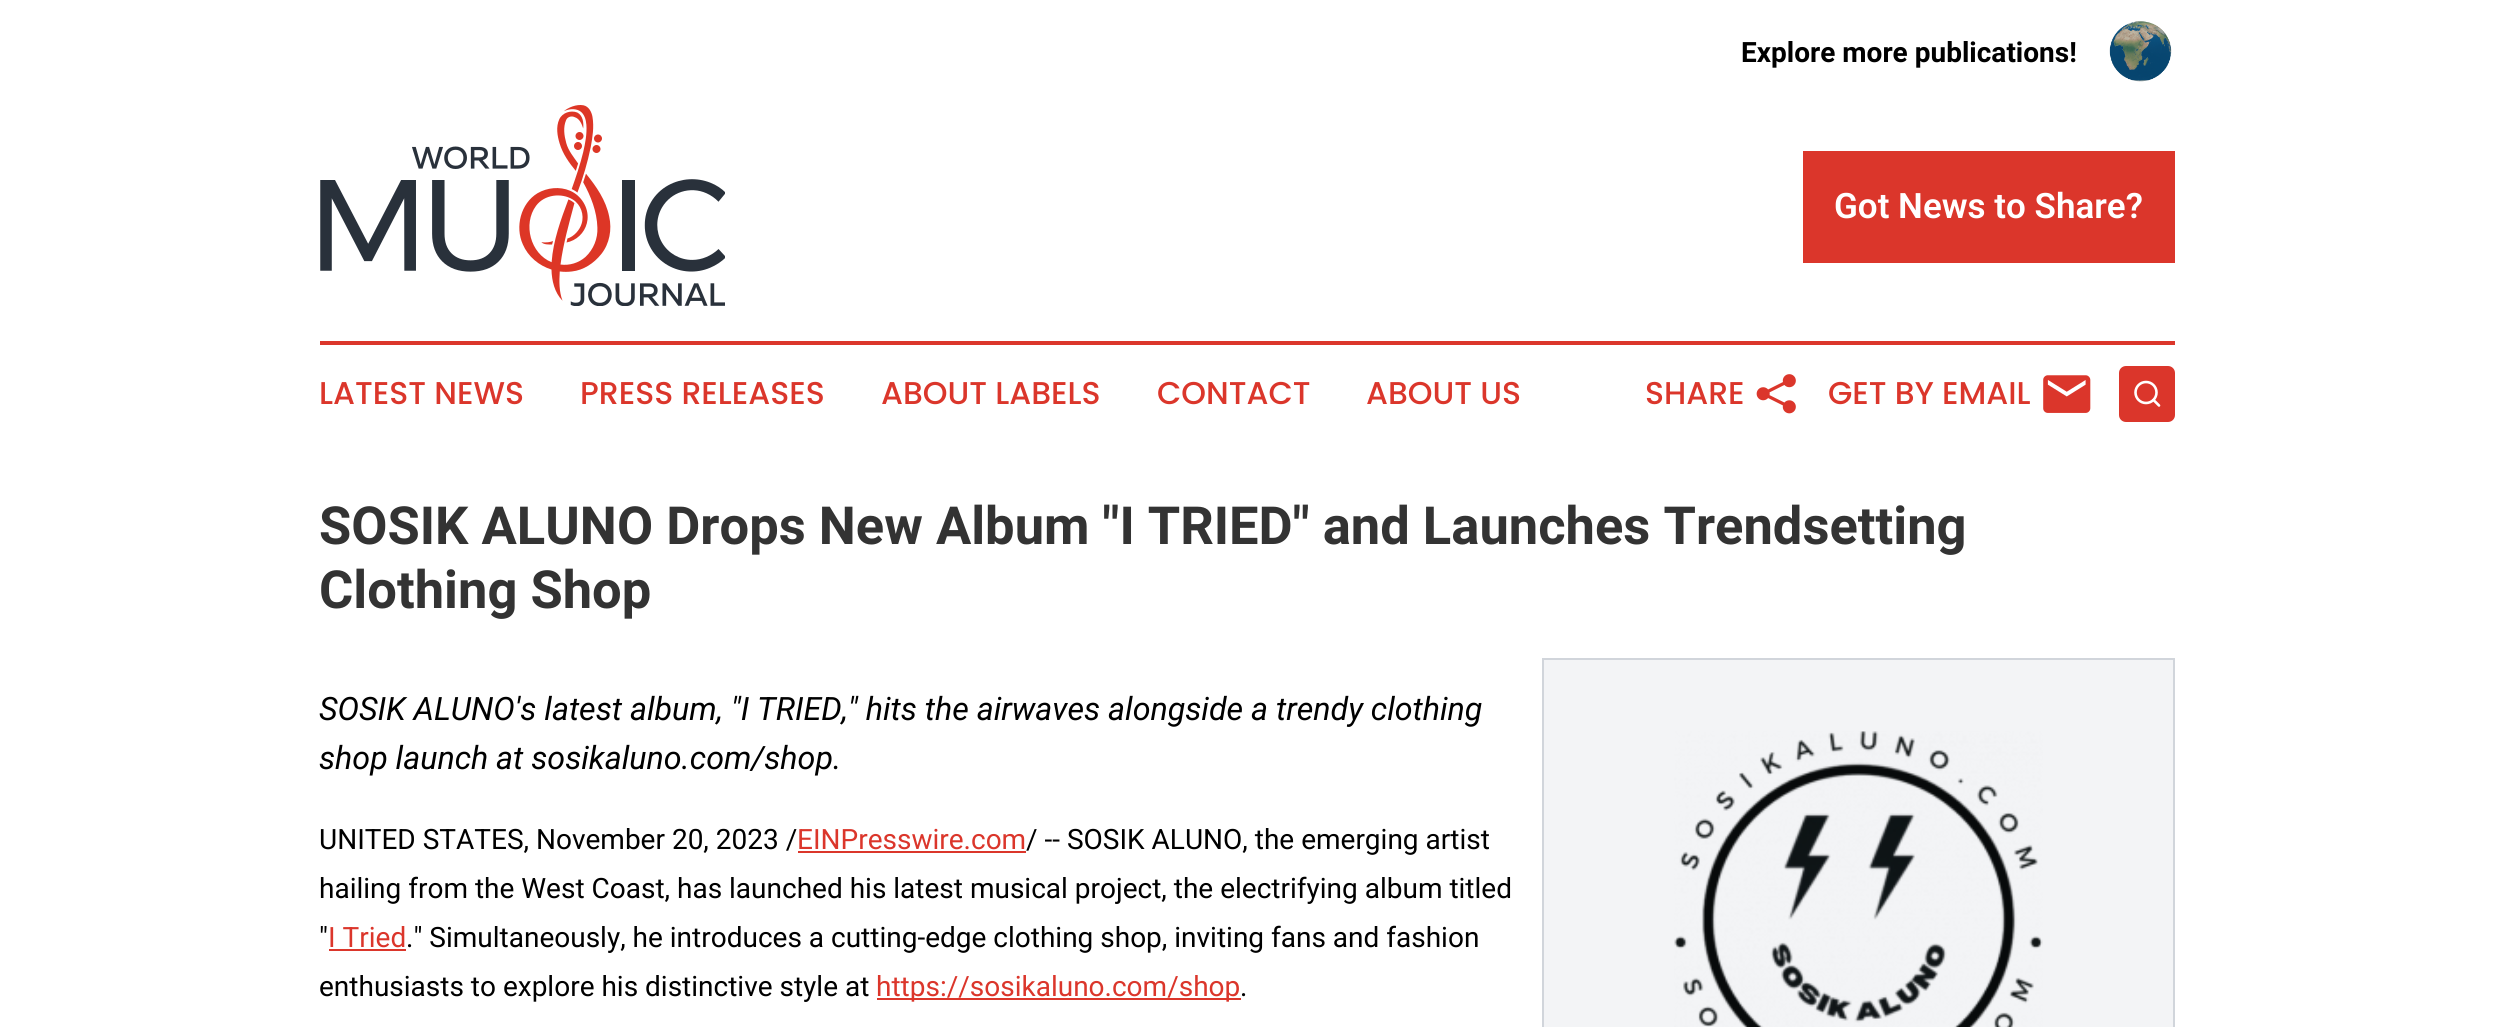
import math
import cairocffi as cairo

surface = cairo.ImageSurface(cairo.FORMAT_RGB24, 2493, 1027)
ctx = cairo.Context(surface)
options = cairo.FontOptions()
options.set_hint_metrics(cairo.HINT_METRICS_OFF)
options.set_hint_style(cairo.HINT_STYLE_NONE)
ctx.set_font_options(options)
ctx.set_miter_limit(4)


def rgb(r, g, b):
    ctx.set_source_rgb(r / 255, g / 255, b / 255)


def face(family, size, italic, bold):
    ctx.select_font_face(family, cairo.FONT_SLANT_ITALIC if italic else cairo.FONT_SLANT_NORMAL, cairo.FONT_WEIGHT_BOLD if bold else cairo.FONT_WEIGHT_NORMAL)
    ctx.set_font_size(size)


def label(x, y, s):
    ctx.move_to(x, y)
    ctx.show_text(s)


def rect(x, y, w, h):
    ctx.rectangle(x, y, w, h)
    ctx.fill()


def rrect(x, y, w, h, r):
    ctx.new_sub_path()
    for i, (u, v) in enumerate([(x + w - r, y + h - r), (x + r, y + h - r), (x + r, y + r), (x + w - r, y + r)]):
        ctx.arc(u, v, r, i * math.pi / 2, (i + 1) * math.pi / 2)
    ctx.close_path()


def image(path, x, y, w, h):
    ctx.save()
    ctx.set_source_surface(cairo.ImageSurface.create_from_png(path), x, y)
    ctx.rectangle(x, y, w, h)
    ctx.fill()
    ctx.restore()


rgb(255, 255, 255)
ctx.paint()
face('Roboto', 28, 0, 1)
rgb(0, 0, 0)
label(1741, 62, 'Explore more publications!')
image('image0.png', 2109, 21, 63, 61)
image('image1.png', 320, 105, 405, 201)
rgb(219, 54, 43)
rect(1803, 151, 372, 112)
face('Roboto SemiBold', 35, 0, 0)
rgb(255, 255, 255)
label(1834, 218, 'Got News to Share?')
rgb(219, 54, 43)
rect(320, 341, 1855, 4)
face('Poppins Medium', 31.5, 0, 0)
label(319, 404, 'LATEST NEWS')
label(580, 404, 'PRESS RELEASES')
label(881, 404, 'ABOUT LABELS')
label(1157, 404, 'CONTACT')
label(1366, 404, 'ABOUT US')
label(1645, 404, 'SHARE')
image('image2.png', 1756, 374, 40, 40)
label(1828, 404, 'GET BY EMAIL')
image('image3.png', 2043, 375, 48, 38)
rrect(2119, 366, 56, 56, 7)
ctx.fill()
ctx.arc(2146, 392.5, 10.5, 0, 2 * math.pi)
rgb(255, 255, 255)
ctx.set_line_width(2.6)
ctx.stroke()
ctx.new_path()
ctx.move_to(2159, 405.5)
ctx.line_to(2153.5, 400)
ctx.set_line_cap(cairo.LINE_CAP_ROUND)
ctx.set_line_join(cairo.LINE_JOIN_ROUND)
ctx.stroke()
face('Roboto', 52.5, 0, 1)
rgb(51, 51, 51)
label(319, 544, 'SOSIK ALUNO Drops New Album "I TRIED" and Launches Trendsetting')
label(319, 608, 'Clothing Shop')
face('Roboto', 32.2, 1, 0)
rgb(0, 0, 0)
label(319, 720, 'SOSIK ALUNO\'s latest album, "I TRIED," hits the airwaves alongside a trendy clothing')
label(319, 769, 'shop launch at sosikaluno.com/shop.')
rgb(243, 244, 246)
ctx.rectangle(1543, 659, 631, 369)
ctx.fill_preserve()
rgb(209, 213, 219)
ctx.set_line_width(2)
ctx.set_line_cap(cairo.LINE_CAP_BUTT)
ctx.set_line_join(cairo.LINE_JOIN_MITER)
ctx.stroke()
image('image4.png', 1674, 731, 369, 296)
face('Roboto', 28, 0, 0)
rgb(0, 0, 0)
label(319, 849, 'UNITED STATES, November 20, 2023 /')
rgb(219, 54, 43)
label(797, 849, 'EINPresswire.com')
rect(798, 851, 228, 2)
rgb(0, 0, 0)
label(1026, 849, '/ -- SOSIK ALUNO, the emerging artist')
label(319, 898, 'hailing from the West Coast, has launched his latest musical project, the electrifying album titled')
label(319, 947, '"')
rgb(219, 54, 43)
label(328, 947, 'I Tried')
rect(329, 949, 77, 2)
rgb(0, 0, 0)
label(406, 947, '." Simultaneously, he introduces a cutting-edge clothing shop, inviting fans and fashion')
label(319, 996, 'enthusiasts to explore his distinctive style at')
rgb(219, 54, 43)
rect(877, 998, 364, 2)
label(876, 996, 'https://sosikaluno.com/shop')
rgb(0, 0, 0)
label(1240, 996, '.')
surface.write_to_png('render.png')
